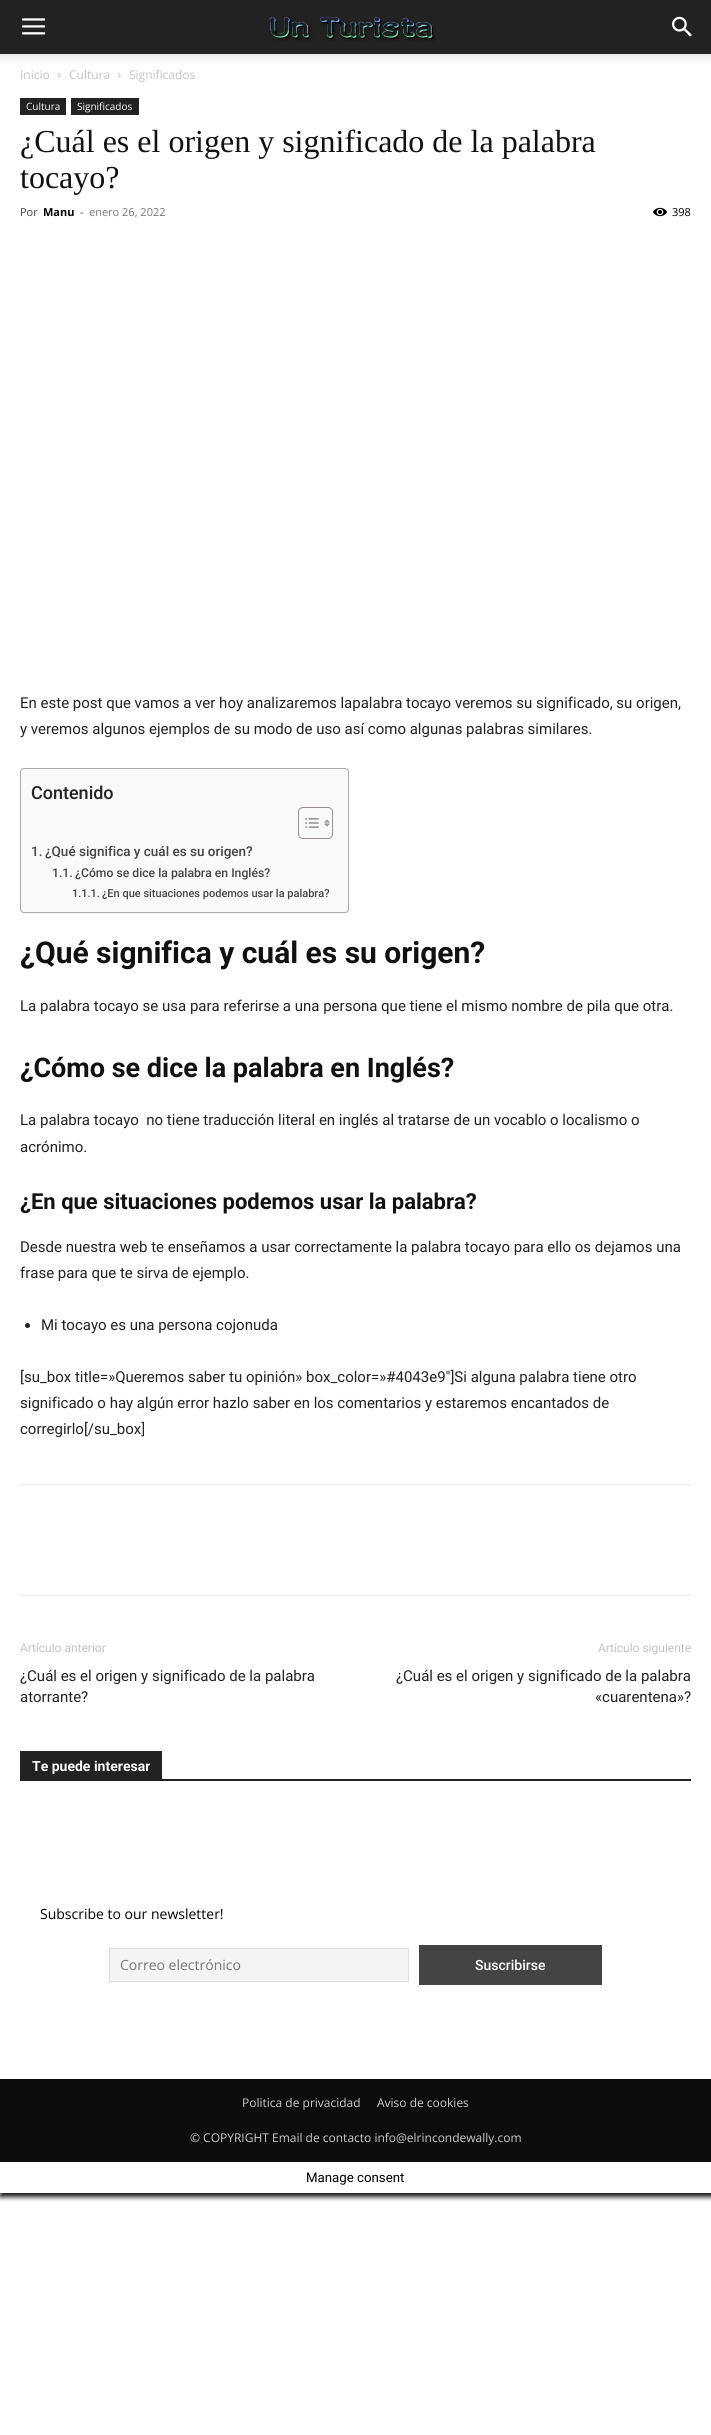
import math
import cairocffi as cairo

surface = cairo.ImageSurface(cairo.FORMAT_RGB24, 711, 2435)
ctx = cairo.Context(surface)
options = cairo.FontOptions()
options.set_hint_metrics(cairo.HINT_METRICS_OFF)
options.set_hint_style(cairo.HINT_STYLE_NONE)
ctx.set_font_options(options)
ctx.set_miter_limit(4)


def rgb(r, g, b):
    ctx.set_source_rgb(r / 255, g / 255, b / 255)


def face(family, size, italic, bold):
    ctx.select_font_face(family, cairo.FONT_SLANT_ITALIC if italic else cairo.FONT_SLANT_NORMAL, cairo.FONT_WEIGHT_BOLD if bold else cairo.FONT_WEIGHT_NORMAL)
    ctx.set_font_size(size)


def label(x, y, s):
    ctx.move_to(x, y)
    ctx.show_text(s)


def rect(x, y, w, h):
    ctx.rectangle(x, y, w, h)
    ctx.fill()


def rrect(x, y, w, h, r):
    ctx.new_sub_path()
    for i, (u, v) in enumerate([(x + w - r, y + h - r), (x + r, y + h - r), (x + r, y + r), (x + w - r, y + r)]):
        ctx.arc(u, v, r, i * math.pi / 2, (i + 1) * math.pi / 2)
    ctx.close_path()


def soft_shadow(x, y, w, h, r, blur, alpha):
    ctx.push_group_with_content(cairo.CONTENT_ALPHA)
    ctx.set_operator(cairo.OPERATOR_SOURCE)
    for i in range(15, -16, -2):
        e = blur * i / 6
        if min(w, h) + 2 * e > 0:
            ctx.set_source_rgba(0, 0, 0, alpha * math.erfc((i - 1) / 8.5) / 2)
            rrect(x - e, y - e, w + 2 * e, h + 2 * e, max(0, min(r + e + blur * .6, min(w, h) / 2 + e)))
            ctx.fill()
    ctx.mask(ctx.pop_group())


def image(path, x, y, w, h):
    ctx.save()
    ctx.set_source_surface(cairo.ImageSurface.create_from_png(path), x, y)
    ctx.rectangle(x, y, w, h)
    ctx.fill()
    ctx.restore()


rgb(255, 255, 255)
ctx.paint()
rgb(34, 34, 34)
rect(0, 0, 711, 54)
image('image0.png', 22, 18, 24, 17)
image('image1.png', 269, 17, 167, 25)
image('image2.png', 672, 16, 20, 21)
image('image3.png', 0, 54, 711, 9)
face('Open Sans', 12, 0, 0)
rgb(195, 195, 195)
label(20, 79, 'Inicio')
image('image4.png', 58, 73, 3, 5)
label(69, 79, 'Cultura')
image('image4.png', 118, 73, 3, 5)
label(129, 79, 'Significados')
rgb(34, 34, 34)
rect(20, 98, 46, 17)
face('Open Sans', 10, 0, 0)
rgb(255, 255, 255)
label(26, 110, 'Cultura')
rgb(34, 34, 34)
rect(71, 98, 68, 17)
rgb(255, 255, 255)
label(77, 110, 'Significados')
face('Liberation Serif', 32, 0, 0)
rgb(17, 17, 17)
label(20, 152, '¿Cuál es el origen y significado de la palabra')
label(20, 188, 'tocayo?')
face('Open Sans', 11, 0, 0)
rgb(68, 68, 68)
label(20, 216, 'Por')
face('Open Sans', 11, 0, 1)
rgb(0, 0, 0)
label(43, 216, 'Manu')
face('Open Sans', 11, 0, 0)
rgb(68, 68, 68)
label(80, 216, '-')
rgb(118, 118, 118)
label(89, 216, 'enero 26, 2022')
image('image5.png', 653, 207, 14, 10)
rgb(0, 0, 0)
label(672, 216, '398')
face('Roboto', 15, 0, 0)
rgb(34, 34, 34)
label(20, 708, 'En este post que vamos a ver hoy analizaremos lapalabra tocayo veremos su significado, su origen,')
label(20, 734, 'y veremos algunos ejemplos de su modo de uso así como algunas palabras similares.')
rgb(0, 0, 0)
soft_shadow(20, 769, 329, 145, 4, 0.5, 0.05)
rgb(249, 249, 249)
rrect(20.5, 768.5, 328, 144, 3.5)
ctx.fill_preserve()
rgb(170, 170, 170)
ctx.set_line_width(1)
ctx.stroke()
face('Roboto Medium', 18, 0, 0)
rgb(34, 34, 34)
label(31, 799, 'Contenido')
rrect(298.5, 807.5, 34, 31, 4.5)
rgb(153, 145, 145)
ctx.stroke()
image('image6.png', 305, 818, 14, 10)
image('image7.png', 324, 819, 6, 8)
face('Roboto Medium', 13.5, 0, 0)
rgb(68, 68, 68)
label(31, 856, '1.')
label(45, 856, '¿Qué significa y cuál es su origen?')
face('Roboto Medium', 12.2, 0, 0)
label(52, 877, '1.1.')
label(75, 877, '¿Cómo se dice la palabra en Inglés?')
face('Roboto Medium', 11, 0, 0)
label(72, 897, '1.1.1.')
label(102, 897, '¿En que situaciones podemos usar la palabra?')
face('Roboto', 30, 0, 1)
rgb(17, 17, 17)
label(20, 963, '¿Qué significa y cuál es su origen?')
face('Roboto', 15, 0, 0)
rgb(34, 34, 34)
label(20, 1011, 'La palabra tocayo se usa para referirse a una persona que tiene el mismo nombre de pila que otra.')
face('Roboto', 27, 0, 1)
rgb(17, 17, 17)
label(20, 1077, '¿Cómo se dice la palabra en Inglés?')
face('Roboto', 15, 0, 0)
rgb(34, 34, 34)
label(20, 1125, 'La palabra tocayo  no tiene traducción literal en inglés al tratarse de un vocablo o localismo o')
label(20, 1152, 'acrónimo.')
face('Roboto', 22, 0, 1)
rgb(17, 17, 17)
label(20, 1209, '¿En que situaciones podemos usar la palabra?')
face('Roboto', 15, 0, 0)
rgb(34, 34, 34)
label(20, 1252, 'Desde nuestra web te enseñamos a usar correctamente la palabra tocayo para ello os dejamos una')
label(20, 1278, 'frase para que te sirva de ejemplo.')
ctx.new_path()
ctx.arc(27.5, 1325.5, 2.5, 0, 2 * math.pi)
ctx.fill()
label(41, 1330, 'Mi tocayo es una persona cojonuda')
label(20, 1382, '[su_box title=»Queremos saber tu opinión» box_color=»#4043e9″]Si alguna palabra tiene otro')
label(20, 1408, 'significado o hay algún error hazlo saber en los comentarios y estaremos encantados de')
label(20, 1434, 'corregirlo[/su_box]')
rgb(237, 237, 237)
rect(20, 1484, 671, 1)
rect(20, 1595, 671, 1)
face('Roboto', 12, 0, 0)
rgb(195, 195, 195)
label(20, 1652, 'Artículo anterior')
face('Roboto', 15, 0, 0)
rgb(34, 34, 34)
label(20, 1681, '¿Cuál es el origen y significado de la palabra')
label(20, 1702, 'atorrante?')
face('Roboto', 12, 0, 0)
rgb(195, 195, 195)
label(598, 1652, 'Artículo siguiente')
face('Roboto', 15, 0, 0)
rgb(34, 34, 34)
label(396, 1681, '¿Cuál es el origen y significado de la palabra')
label(595, 1702, '«cuarentena»?')
rect(20, 1779, 671, 2)
rect(20, 1751, 142, 28)
face('Roboto', 14, 0, 1)
rgb(255, 255, 255)
label(32, 1771, 'Te puede interesar')
face('Open Sans', 14, 0, 0)
rgb(0, 0, 0)
label(40, 1919, 'Subscribe to our newsletter!')
rgb(244, 244, 244)
ctx.rectangle(109.5, 1948.5, 299, 33)
ctx.fill_preserve()
rgb(221, 221, 221)
ctx.stroke()
rgb(118, 118, 118)
label(120, 1970, 'Correo electrónico')
rgb(68, 68, 68)
rect(419, 1945, 183, 40)
face('Roboto Medium', 14, 0, 0)
rgb(255, 255, 255)
label(475, 1970, 'Suscribirse')
ctx.save()
ctx.rectangle(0, 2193, 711, 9)
ctx.clip()
rgb(22, 22, 22)
soft_shadow(0, 2162, 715, 35, 0, 2.5, 1)
ctx.restore()
rgb(13, 13, 13)
rect(0, 2079, 711, 83)
face('Open Sans', 12, 0, 0)
rgb(204, 204, 204)
label(242, 2107, 'Politica de privacidad')
label(377, 2107, 'Aviso de cookies')
label(190, 2142, '© COPYRIGHT Email de contacto info@elrincondewally.com')
face('Roboto', 13.25, 0, 0)
rgb(0, 0, 0)
label(306, 2182, 'Manage consent')
surface.write_to_png('render.png')
